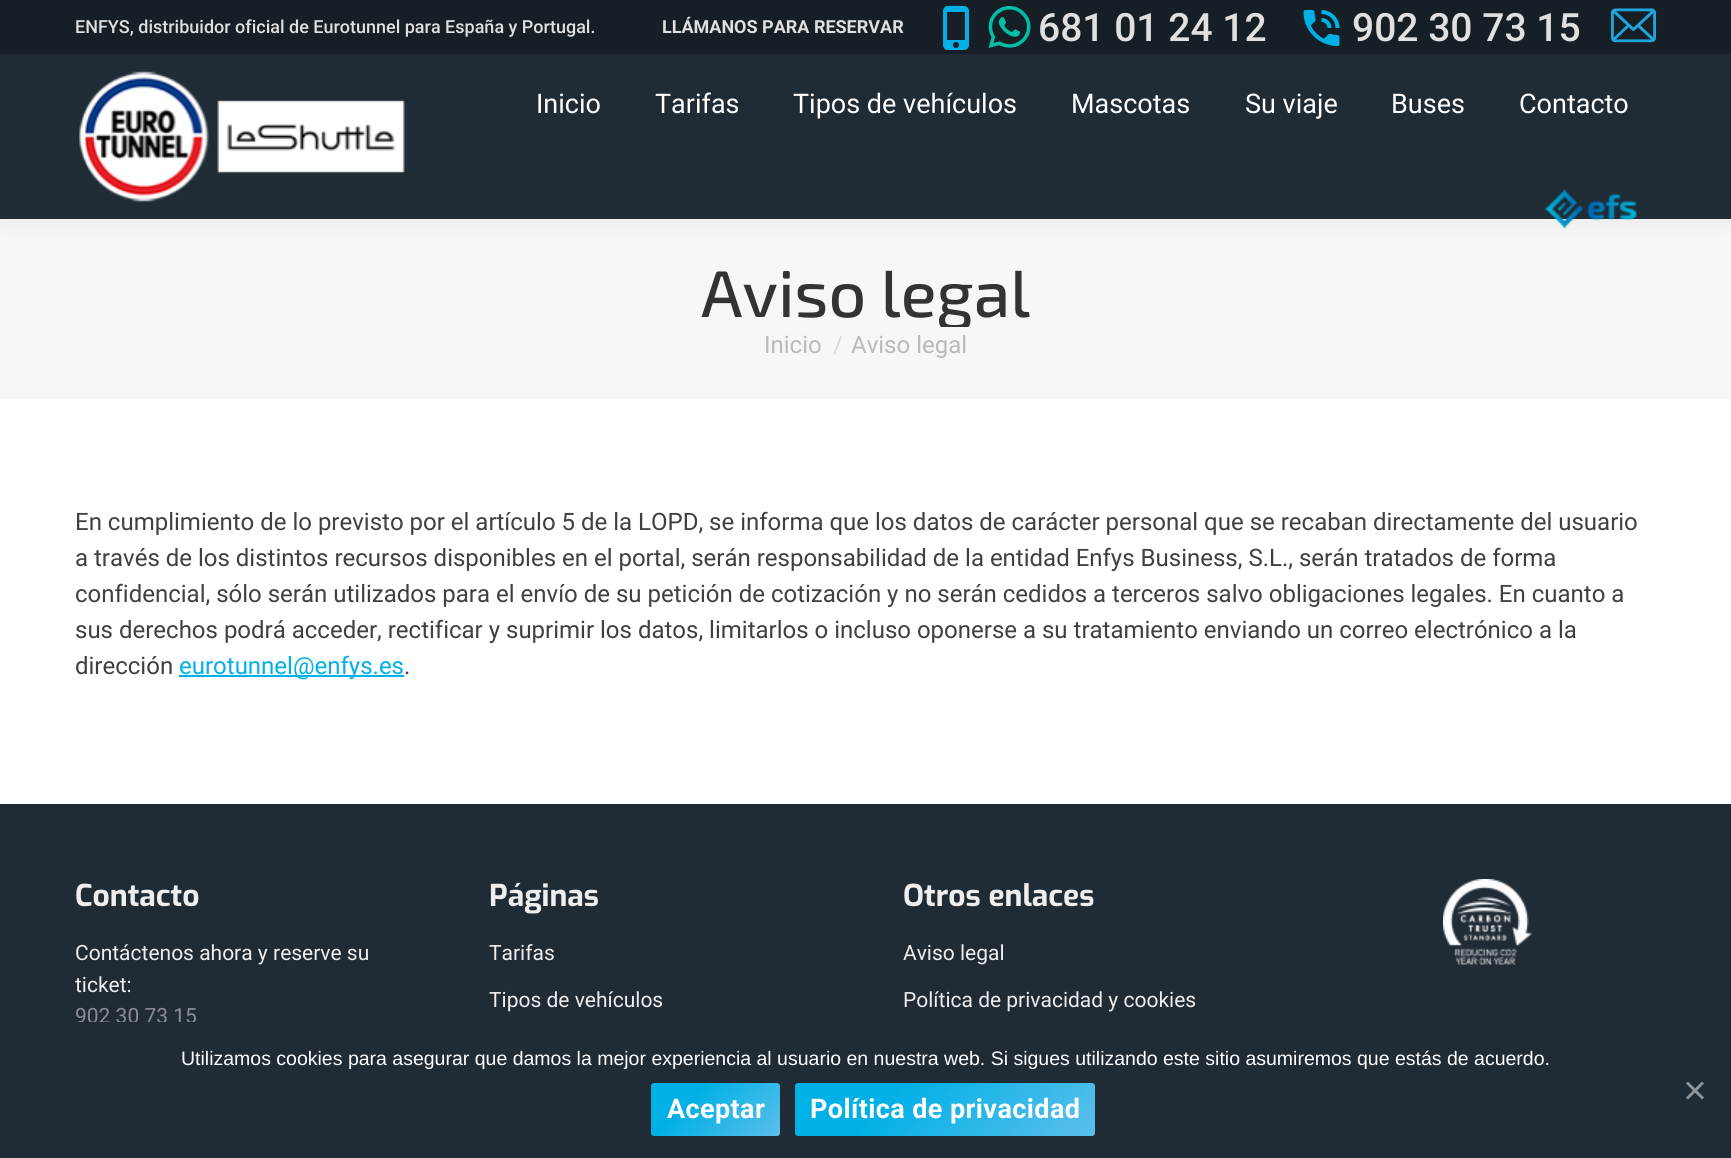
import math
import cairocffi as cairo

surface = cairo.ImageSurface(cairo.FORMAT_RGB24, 1731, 1158)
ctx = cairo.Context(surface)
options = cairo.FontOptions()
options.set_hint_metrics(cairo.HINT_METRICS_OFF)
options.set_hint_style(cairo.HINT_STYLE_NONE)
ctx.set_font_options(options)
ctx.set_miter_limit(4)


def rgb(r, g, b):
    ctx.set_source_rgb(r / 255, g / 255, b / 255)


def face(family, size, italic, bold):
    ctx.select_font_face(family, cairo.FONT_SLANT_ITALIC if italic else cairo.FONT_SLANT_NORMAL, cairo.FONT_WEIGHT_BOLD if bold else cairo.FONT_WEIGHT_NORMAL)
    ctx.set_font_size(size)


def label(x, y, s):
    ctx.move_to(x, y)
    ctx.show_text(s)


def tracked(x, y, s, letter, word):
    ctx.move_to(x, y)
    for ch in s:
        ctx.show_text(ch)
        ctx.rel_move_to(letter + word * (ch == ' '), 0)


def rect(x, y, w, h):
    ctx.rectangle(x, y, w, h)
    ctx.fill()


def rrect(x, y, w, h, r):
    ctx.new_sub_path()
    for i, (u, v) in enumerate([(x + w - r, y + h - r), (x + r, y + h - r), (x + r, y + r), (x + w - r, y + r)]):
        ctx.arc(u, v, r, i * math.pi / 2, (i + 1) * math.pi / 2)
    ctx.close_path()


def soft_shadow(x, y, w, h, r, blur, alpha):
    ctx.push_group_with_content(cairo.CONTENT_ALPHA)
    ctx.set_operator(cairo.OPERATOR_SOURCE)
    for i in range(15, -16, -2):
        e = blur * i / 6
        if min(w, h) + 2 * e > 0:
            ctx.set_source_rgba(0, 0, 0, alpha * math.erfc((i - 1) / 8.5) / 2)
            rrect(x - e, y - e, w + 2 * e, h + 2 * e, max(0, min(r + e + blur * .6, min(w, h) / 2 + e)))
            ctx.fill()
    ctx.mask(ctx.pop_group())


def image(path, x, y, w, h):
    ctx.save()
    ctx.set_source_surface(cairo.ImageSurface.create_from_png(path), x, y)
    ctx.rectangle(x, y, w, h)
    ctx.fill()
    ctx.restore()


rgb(255, 255, 255)
ctx.paint()
rgb(247, 247, 247)
rect(0, 219, 1731, 180)
rgb(0, 0, 0)
soft_shadow(-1, -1, 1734, 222, 0, 11, 0.07)
rgb(31, 44, 54)
rect(0, 54, 1731, 165)
rgb(22, 31, 38)
rect(0, 0, 1731, 54)
face('Roboto Medium', 18, 0, 0)
rgb(224, 224, 224)
label(75, 33, 'ENFYS, distribuidor oficial de Eurotunnel para España y Portugal.')
face('Roboto', 18, 0, 1)
label(662, 33, 'LLÁMANOS PARA RESERVAR')
image('image0.png', 943, 5, 26, 45)
image('image1.png', 988, 6, 43, 42)
face('Roboto Medium', 39, 0, 0)
label(1038, 41, '681 01 24 12')
image('image2.png', 1303, 10, 37, 36)
label(1352, 41, '902 30 73 15')
image('image3.png', 1611, 8, 45, 35)
image('image4.png', 79, 71, 326, 131)
face('Roboto', 27, 0, 0)
rgb(255, 255, 255)
label(536, 113, 'Inicio')
label(655, 113, 'Tarifas')
label(793, 113, 'Tipos de vehículos')
label(1071, 113, 'Mascotas')
label(1245, 113, 'Su viaje')
label(1391, 113, 'Buses')
label(1519, 113, 'Contacto')
image('image5.png', 1544, 188, 93, 41)
ctx.save()
ctx.rectangle(701, 255, 330, 72)
ctx.clip()
face('Exo 2 Medium', 66, 0, 0)
rgb(51, 51, 51)
label(701, 317, 'Aviso legal')
ctx.restore()
face('Roboto', 24, 0, 0)
rgb(183, 186, 190)
label(764, 353, 'Inicio')
rgb(215, 217, 219)
label(833, 353, '/')
rgb(183, 186, 190)
label(851, 353, 'Aviso legal')
rgb(64, 64, 64)
label(75, 530, 'En cumplimiento de lo previsto por el artículo 5 de la LOPD, se informa que los datos de carácter personal que se recaban directamente del usuario')
label(75, 566, 'a través de los distintos recursos disponibles en el portal, serán responsabilidad de la entidad Enfys Business, S.L., serán tratados de forma')
label(75, 602, 'confidencial, sólo serán utilizados para el envío de su petición de cotización y no serán cedidos a terceros salvo obligaciones legales. En cuanto a')
label(75, 638, 'sus derechos podrá acceder, rectificar y suprimir los datos, limitarlos o incluso oponerse a su tratamiento enviando un correo electrónico a la')
label(75, 674, 'dirección')
rgb(0, 176, 230)
rect(179, 675, 225, 2)
label(179, 674, 'eurotunnel@enfys.es')
rgb(64, 64, 64)
label(404, 674, '.')
rgb(31, 44, 54)
rect(0, 804, 1731, 218)
face('Exo', 30, 0, 1)
rgb(238, 238, 238)
label(75, 906, 'Contacto')
face('Roboto', 21, 0, 0)
label(75, 960, 'Contáctenos ahora y reserve su')
label(75, 992, 'ticket:')
rgb(139, 141, 148)
label(75, 1023, '902 30 73 15')
face('Exo', 30, 0, 1)
rgb(238, 238, 238)
label(489, 906, 'Páginas')
face('Roboto', 21, 0, 0)
label(489, 960, 'Tarifas')
label(489, 1007, 'Tipos de vehículos')
face('Exo', 30, 0, 1)
label(903, 906, 'Otros enlaces')
face('Roboto', 21, 0, 0)
label(903, 960, 'Aviso legal')
label(903, 1007, 'Política de privacidad y cookies')
image('image6.png', 1443, 879, 89, 86)
rgb(31, 44, 54)
rect(0, 1022, 1731, 136)
face('Liberation Sans', 19.5, 0, 0)
rgb(255, 255, 255)
label(181, 1065, 'Utilizamos cookies para asegurar que damos la mejor experiencia al usuario en nuestra web. Si sigues utilizando este sitio asumiremos que estás de acuerdo.')
rgb(143, 150, 155)
ctx.new_path()
ctx.move_to(1702, 1081.5)
ctx.line_to(1704, 1083.5)
ctx.line_to(1688, 1099.5)
ctx.line_to(1686, 1097.5)
ctx.close_path()
ctx.fill()
ctx.new_path()
ctx.move_to(1686, 1083.5)
ctx.line_to(1688, 1081.5)
ctx.line_to(1704, 1097.5)
ctx.line_to(1702, 1099.5)
ctx.close_path()
ctx.fill()
gradient = cairo.LinearGradient(670, 1064, 761, 1155)
gradient.add_color_stop_rgba(0.3, 0, 0.69, 0.902, 1)
gradient.add_color_stop_rgba(1, 0.361, 0.749, 0.922, 1)
ctx.set_source(gradient)
rrect(651, 1083, 129, 53, 3)
ctx.fill()
face('Roboto', 27, 0, 1)
rgb(255, 255, 255)
tracked(667, 1118, 'Aceptar', 0.4, 0)
gradient = cairo.LinearGradient(857, 1021, 1033, 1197)
gradient.add_color_stop_rgba(0.3, 0, 0.69, 0.902, 1)
gradient.add_color_stop_rgba(1, 0.361, 0.749, 0.922, 1)
ctx.set_source(gradient)
rrect(795, 1083, 300, 53, 3)
ctx.fill()
rgb(255, 255, 255)
tracked(810, 1118, 'Política de privacidad', 0.4, 0)
surface.write_to_png('render.png')
